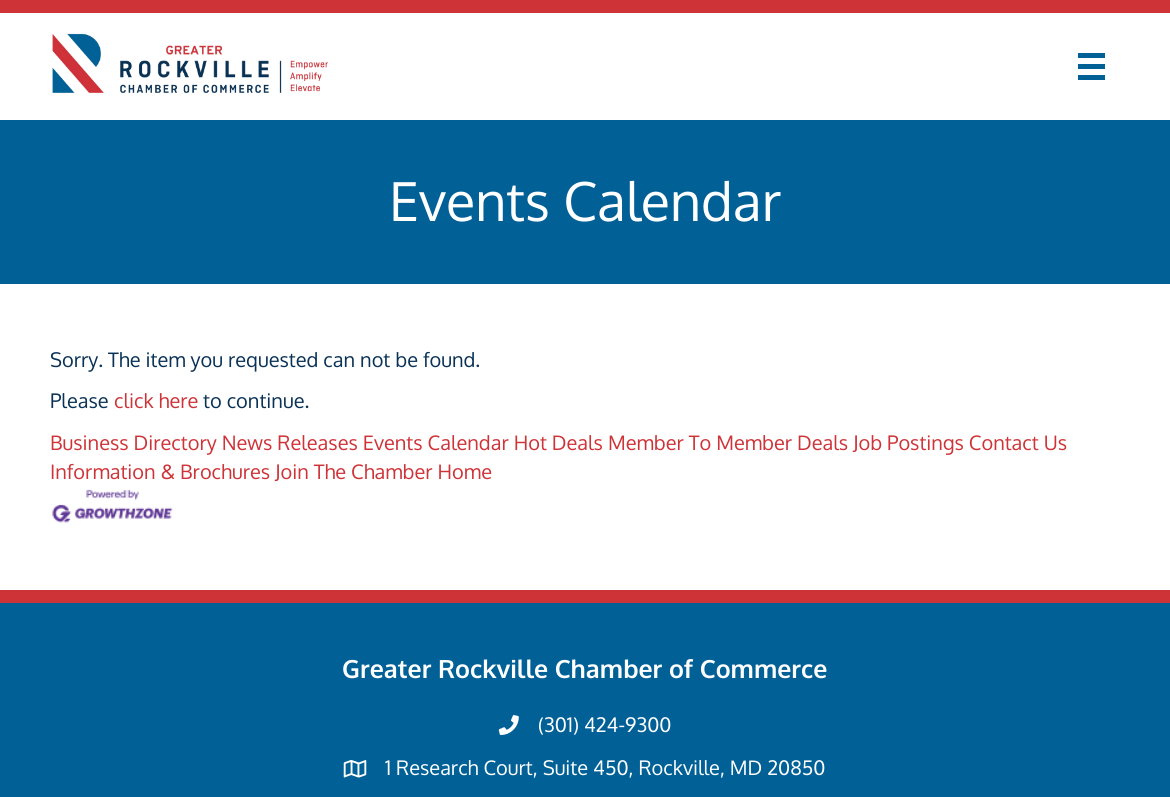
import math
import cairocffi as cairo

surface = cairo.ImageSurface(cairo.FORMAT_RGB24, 1170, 797)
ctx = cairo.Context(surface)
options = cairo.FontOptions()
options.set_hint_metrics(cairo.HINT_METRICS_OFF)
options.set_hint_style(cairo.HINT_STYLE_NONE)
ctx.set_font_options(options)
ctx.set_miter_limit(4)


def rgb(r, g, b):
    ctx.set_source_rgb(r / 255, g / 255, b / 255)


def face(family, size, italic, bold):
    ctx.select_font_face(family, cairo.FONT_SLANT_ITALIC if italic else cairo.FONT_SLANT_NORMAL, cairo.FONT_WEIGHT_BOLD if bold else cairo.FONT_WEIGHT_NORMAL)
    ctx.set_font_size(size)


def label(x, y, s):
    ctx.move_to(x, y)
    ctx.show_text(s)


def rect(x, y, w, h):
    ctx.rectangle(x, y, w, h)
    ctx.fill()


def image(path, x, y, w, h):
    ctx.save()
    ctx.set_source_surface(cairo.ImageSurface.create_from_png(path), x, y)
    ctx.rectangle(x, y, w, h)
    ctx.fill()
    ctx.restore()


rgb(255, 255, 255)
ctx.paint()
rgb(206, 51, 55)
rect(0, 0, 1170, 13)
image('image0.png', 52, 33, 276, 60)
rgb(1, 96, 150)
rect(1078, 53, 27, 5)
rect(1078, 64, 27, 5)
rect(1078, 75, 27, 5)
rect(0, 120, 1170, 164)
face('Oxygen', 53.75, 0, 0)
rgb(255, 255, 255)
label(389, 221, 'Events Calendar')
face('Oxygen', 20, 0, 0)
rgb(10, 50, 86)
label(50, 367, 'Sorry. The item you requested can not be found.')
label(50, 408, 'Please')
rgb(206, 51, 55)
label(114, 408, 'click here')
rgb(10, 50, 86)
label(203, 408, 'to continue.')
rgb(206, 51, 55)
label(50, 450, 'Business Directory News Releases Events Calendar Hot Deals Member To Member Deals Job Postings Contact Us')
label(50, 479, 'Information & Brochures Join The Chamber Home')
image('image1.png', 52, 489, 121, 34)
rgb(1, 96, 150)
rect(0, 603, 1170, 194)
rgb(206, 51, 55)
rect(0, 590, 1170, 13)
face('Oxygen', 25, 0, 1)
rgb(255, 255, 255)
label(342, 678, 'Greater Rockville Chamber of Commerce')
image('image2.png', 498, 715, 21, 20)
face('Oxygen', 20, 0, 0)
label(538, 732, '(301) 424-9300')
image('image3.png', 343, 760, 24, 18)
label(385, 775, '1 Research Court, Suite 450, Rockville, MD 20850')
surface.write_to_png('render.png')
